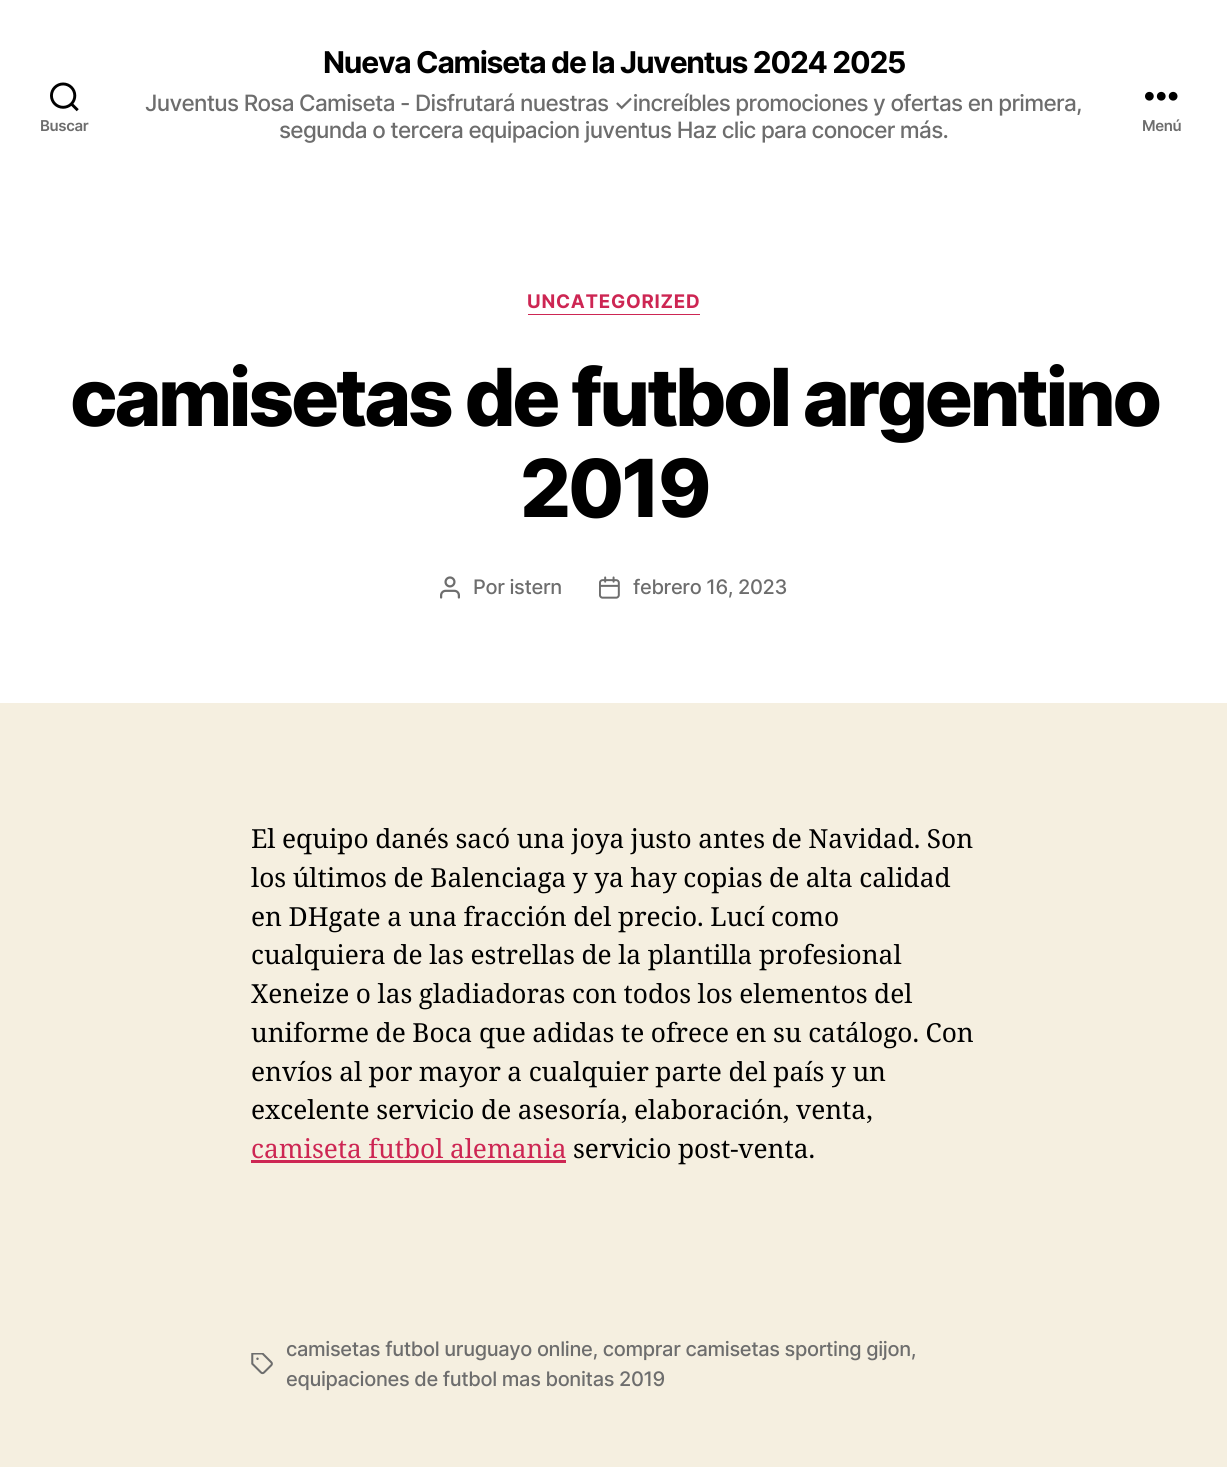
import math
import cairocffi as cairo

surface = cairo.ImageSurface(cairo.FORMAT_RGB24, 1227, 1467)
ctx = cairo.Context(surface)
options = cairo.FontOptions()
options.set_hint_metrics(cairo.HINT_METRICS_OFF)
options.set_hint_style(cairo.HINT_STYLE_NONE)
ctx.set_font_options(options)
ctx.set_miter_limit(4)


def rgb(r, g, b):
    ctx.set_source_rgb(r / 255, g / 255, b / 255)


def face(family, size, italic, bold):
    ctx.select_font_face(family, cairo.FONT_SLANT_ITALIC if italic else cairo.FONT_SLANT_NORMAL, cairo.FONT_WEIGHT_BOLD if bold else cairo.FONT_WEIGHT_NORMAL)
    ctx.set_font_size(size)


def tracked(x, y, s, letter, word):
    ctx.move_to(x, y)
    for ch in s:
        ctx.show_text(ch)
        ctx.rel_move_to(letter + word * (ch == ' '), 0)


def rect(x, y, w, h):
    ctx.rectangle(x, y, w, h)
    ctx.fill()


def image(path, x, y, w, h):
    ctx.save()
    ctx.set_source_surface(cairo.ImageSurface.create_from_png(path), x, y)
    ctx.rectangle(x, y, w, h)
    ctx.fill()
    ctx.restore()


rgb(245, 239, 224)
ctx.paint()
rgb(255, 255, 255)
rect(0, 0, 1227, 703)
image('image0.png', 50, 82, 29, 30)
face('Inter SemiBold', 15, 0, 0)
rgb(109, 109, 109)
tracked(40, 131, 'Buscar', -0.35, 0)
face('Inter', 30, 0, 1)
rgb(0, 0, 0)
tracked(323, 73, 'Nueva Camiseta de la Juventus 2024 2025', -1.25, 0)
face('Inter Medium', 22.5, 0, 0)
rgb(109, 109, 109)
tracked(145, 111, 'Juventus Rosa Camiseta - Disfrutará nuestras ✓increíbles promociones y ofertas en primera,', -0.7, 0)
tracked(279, 138, 'segunda o tercera equipacion juventus Haz clic para conocer más.', -0.7, 0)
image('image1.png', 1145, 91, 33, 10)
face('Inter SemiBold', 15, 0, 0)
tracked(1142, 131, 'Menú', -0.35, 0)
rgb(205, 38, 83)
rect(528, 314, 172, 1)
face('Inter', 18.75, 0, 1)
tracked(527, 308, 'UNCATEGORIZED', 0.75, 0)
face('Inter ExtraBold', 80, 0, 0)
rgb(0, 0, 0)
tracked(70, 426, 'camisetas de futbol argentino', -3.3, 0)
tracked(520, 517, '2019', -3.3, 0)
image('image2.png', 440, 576, 20, 23)
face('Inter Medium', 20, 0, 0)
rgb(109, 109, 109)
tracked(473, 594, 'Por istern', -0.35, 0)
image('image3.png', 599, 576, 21, 23)
tracked(633, 594, 'febrero 16, 2023', -0.35, 0)
face('Noto Serif', 26.25, 0, 0)
rgb(0, 0, 0)
tracked(251, 848, 'El equipo danés sacó una joya justo antes de Navidad. Son', 0, -0.25)
tracked(251, 887, 'los últimos de Balenciaga y ya hay copias de alta calidad', 0, -0.25)
tracked(251, 926, 'en DHgate a una fracción del precio. Lucí como', 0, -0.25)
tracked(251, 964, 'cualquiera de las estrellas de la plantilla profesional', 0, -0.25)
tracked(251, 1003, 'Xeneize o las gladiadoras con todos los elementos del', 0, -0.25)
tracked(251, 1042, 'uniforme de Boca que adidas te ofrece en su catálogo. Con', 0, -0.25)
tracked(251, 1081, 'envíos al por mayor a cualquier parte del país y un', 0, -0.25)
tracked(251, 1119, 'excelente servicio de asesoría, elaboración, venta,', 0, -0.25)
rgb(205, 38, 83)
tracked(251, 1158, 'camiseta futbol alemania', 0, -0.25)
rect(251, 1160, 315, 3)
rgb(0, 0, 0)
tracked(573, 1158, 'servicio post-venta.', 0, -0.25)
image('image4.png', 251, 1353, 22, 22)
face('Inter Medium', 20, 0, 0)
rgb(109, 109, 109)
tracked(286, 1356, 'camisetas futbol uruguayo online, comprar camisetas sporting gijon,', -0.35, 0)
tracked(286, 1386, 'equipaciones de futbol mas bonitas 2019', -0.35, 0)
surface.write_to_png('render.png')
